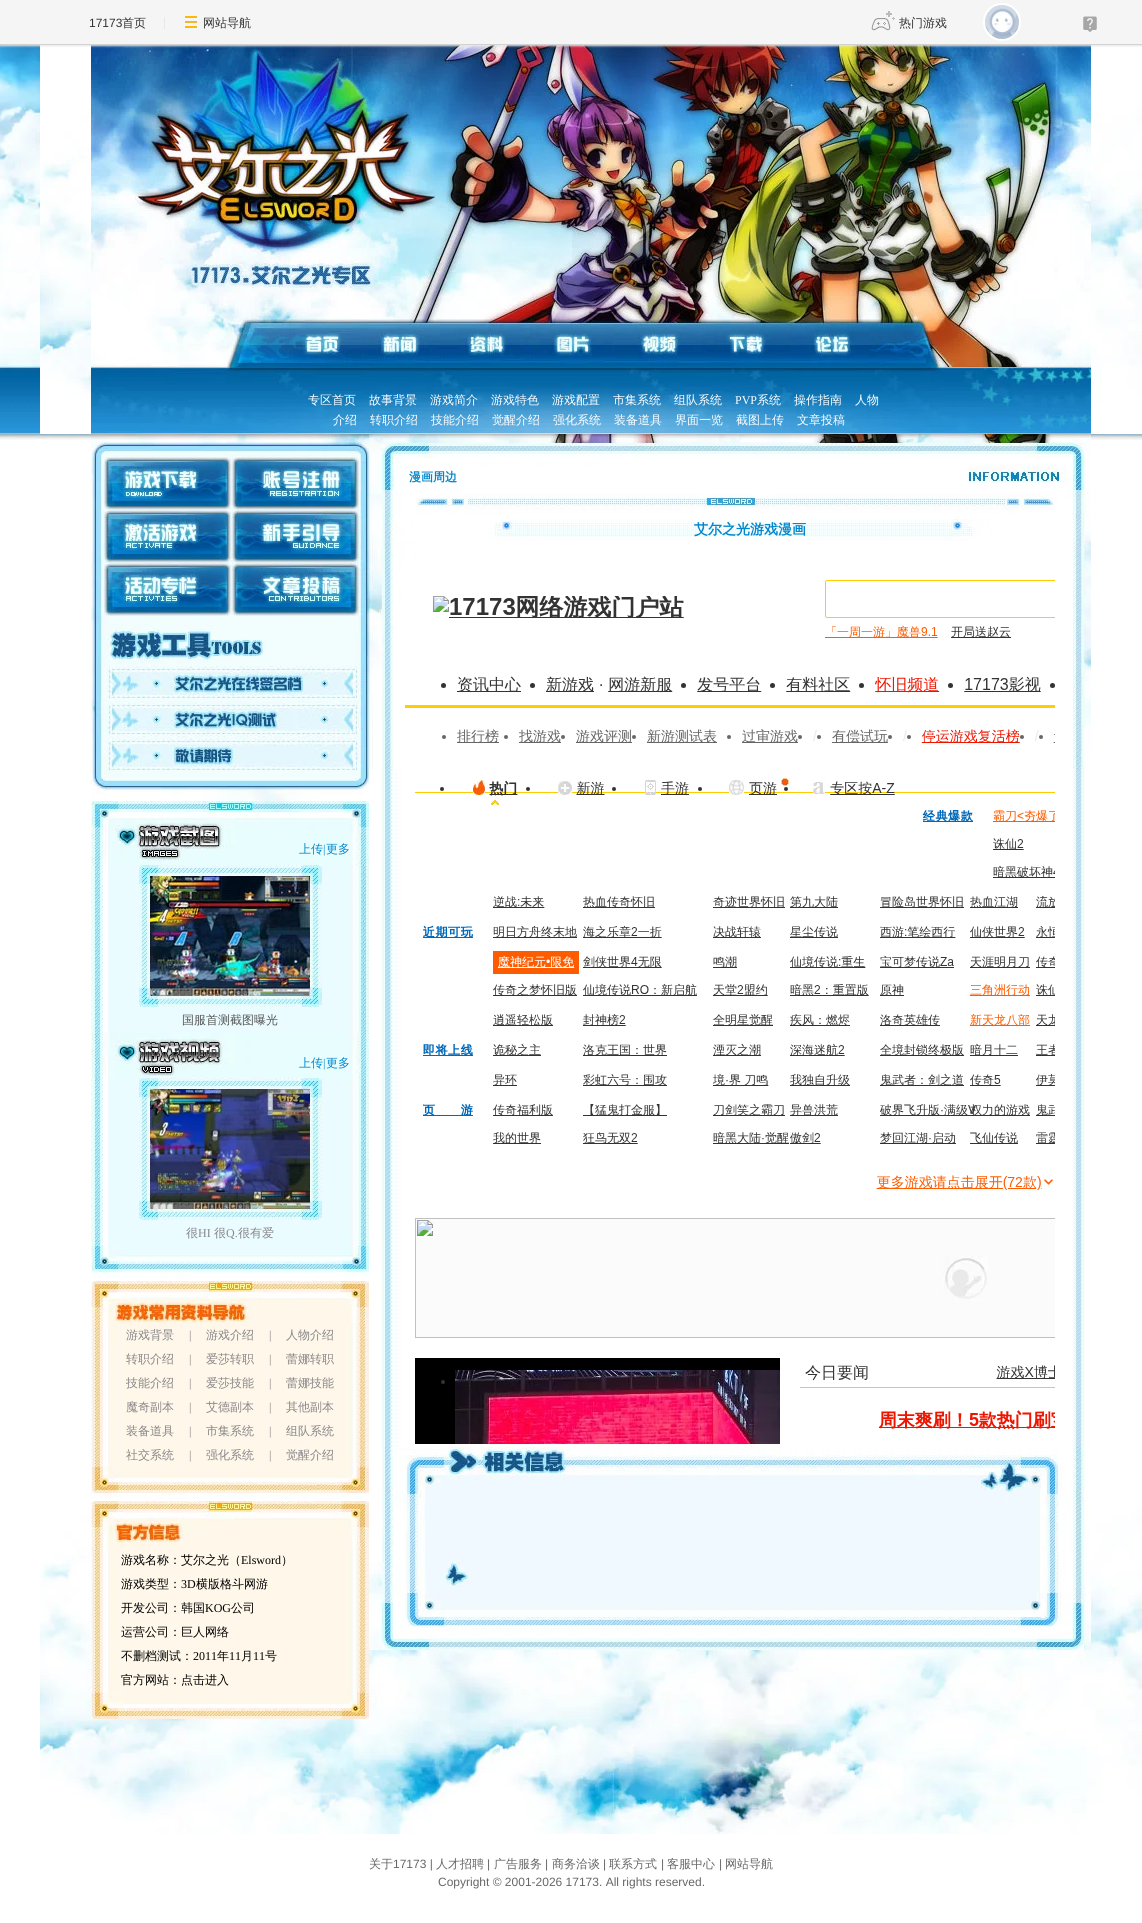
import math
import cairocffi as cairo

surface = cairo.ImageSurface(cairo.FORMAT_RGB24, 1142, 1923)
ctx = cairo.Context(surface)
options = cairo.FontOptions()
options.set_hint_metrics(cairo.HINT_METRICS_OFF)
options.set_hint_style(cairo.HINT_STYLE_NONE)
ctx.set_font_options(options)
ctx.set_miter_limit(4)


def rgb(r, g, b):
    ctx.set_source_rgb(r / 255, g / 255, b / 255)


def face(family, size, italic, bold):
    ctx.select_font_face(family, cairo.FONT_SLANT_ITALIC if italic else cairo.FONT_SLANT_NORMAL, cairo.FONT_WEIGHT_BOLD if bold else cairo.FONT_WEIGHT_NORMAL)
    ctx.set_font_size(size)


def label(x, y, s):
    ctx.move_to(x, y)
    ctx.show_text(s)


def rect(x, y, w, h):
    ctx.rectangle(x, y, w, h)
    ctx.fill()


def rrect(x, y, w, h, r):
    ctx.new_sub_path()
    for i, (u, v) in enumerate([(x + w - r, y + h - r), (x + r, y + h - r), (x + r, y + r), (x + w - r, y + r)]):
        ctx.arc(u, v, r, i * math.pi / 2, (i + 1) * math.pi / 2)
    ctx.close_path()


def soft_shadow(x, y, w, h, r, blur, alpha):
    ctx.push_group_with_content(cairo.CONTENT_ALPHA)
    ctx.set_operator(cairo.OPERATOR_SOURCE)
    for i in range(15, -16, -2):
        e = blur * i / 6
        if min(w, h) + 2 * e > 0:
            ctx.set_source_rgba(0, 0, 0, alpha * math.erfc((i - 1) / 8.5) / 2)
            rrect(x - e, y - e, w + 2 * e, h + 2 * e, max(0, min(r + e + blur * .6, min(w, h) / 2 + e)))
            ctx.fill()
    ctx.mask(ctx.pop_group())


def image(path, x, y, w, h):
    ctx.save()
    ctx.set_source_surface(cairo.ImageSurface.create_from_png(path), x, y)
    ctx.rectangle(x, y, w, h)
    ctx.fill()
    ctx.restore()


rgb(255, 255, 255)
ctx.paint()
image('image4.png', 0, 45, 1142, 395)
image('image6.png', 40, 45, 1102, 389)
image('image7.png', 91, 45, 321, 273)
image('image8.png', 412, 45, 320, 273)
image('image9.png', 732, 45, 359, 273)
rgb(232, 230, 230)
soft_shadow(0, 1, 1142, 45, 0, 1, 1)
rgb(245, 245, 245)
rect(0, 0, 1142, 44)
rgb(210, 210, 210)
rect(0, 44, 1142, 1)
face('Liberation Sans', 12, 0, 0)
rgb(51, 51, 51)
label(89, 27, '17173')
face('WenQuanYi Zen Hei Medium', 12, 0, 0)
label(122, 27, '首页')
rgb(232, 232, 232)
rect(164, 17, 1, 12)
image('image0.png', 185, 16, 12, 12)
rgb(51, 51, 51)
label(203, 27, '网站导航')
image('image1.png', 871, 11, 24, 20)
label(899, 27, '热门游戏')
ctx.new_path()
ctx.arc(1002, 22, 18, 0, 2 * math.pi)
rgb(255, 255, 255)
ctx.stroke()
image('image2.png', 985, 5, 34, 34)
image('image3.png', 1083, 16, 14, 16)
image('image5.png', 40, 1504, 1102, 330)
image('image10.png', 91, 318, 158, 49)
image('image11.png', 249, 318, 120, 49)
image('image12.png', 369, 318, 71, 49)
image('image13.png', 440, 318, 84, 49)
image('image14.png', 524, 318, 90, 49)
image('image15.png', 614, 318, 92, 49)
image('image16.png', 706, 318, 85, 49)
image('image17.png', 791, 318, 79, 49)
image('image18.png', 870, 318, 221, 49)
image('image19.png', 91, 367, 1000, 67)
label(308, 404, '专区首页')
label(369, 404, '故事背景')
label(430, 404, '游戏简介')
label(491, 404, '游戏特色')
label(552, 404, '游戏配置')
label(613, 404, '市集系统')
label(674, 404, '组队系统')
face('Liberation Serif', 12, 0, 0)
label(735, 404, 'PVP')
face('WenQuanYi Zen Hei Medium', 12, 0, 0)
label(757, 404, '系统')
label(794, 404, '操作指南')
label(855, 404, '人物')
label(333, 424, '介绍')
label(370, 424, '转职介绍')
label(431, 424, '技能介绍')
label(492, 424, '觉醒介绍')
label(553, 424, '强化系统')
label(614, 424, '装备道具')
label(675, 424, '界面一览')
label(736, 424, '截图上传')
label(797, 424, '文章投稿')
image('image20.png', 381, 769, 710, 678)
image('image21.png', 369, 434, 722, 85)
face('WenQuanYi Zen Hei', 12, 0, 1)
rgb(0, 135, 205)
label(409, 481, '漫画周边')
image('image22.png', 369, 519, 722, 22)
face('WenQuanYi Zen Hei', 14, 0, 1)
label(694, 534, '艾尔之光游戏漫画')
image('image23.png', 369, 541, 722, 228)
image('image24.png', 405, 580, 650, 864)
image('image25.png', 382, 1447, 703, 43)
image('image26.png', 369, 1490, 722, 103)
image('image27.png', 369, 1593, 722, 57)
image('image28.png', 91, 434, 278, 76)
image('image29.png', 91, 510, 278, 53)
image('image30.png', 91, 563, 278, 53)
image('image31.png', 91, 616, 278, 50)
image('image32.png', 91, 666, 278, 35)
image('image33.png', 91, 701, 278, 37)
image('image34.png', 91, 738, 278, 63)
image('image35.png', 91, 801, 278, 64)
face('WenQuanYi Zen Hei Medium', 12, 0, 0)
label(299, 853, '上传')
face('Liberation Serif', 12, 0, 0)
label(323, 853, '|')
face('WenQuanYi Zen Hei Medium', 12, 0, 0)
label(326, 853, '更多')
image('image36.png', 91, 865, 278, 168)
image('image37.png', 139, 865, 183, 142)
image('image38.png', 150, 876, 160, 120)
rgb(85, 85, 85)
label(182, 1024, '国服首测截图曝光')
image('image39.png', 91, 1033, 278, 45)
rgb(0, 135, 205)
label(299, 1067, '上传')
face('Liberation Serif', 12, 0, 0)
label(323, 1067, '|')
face('WenQuanYi Zen Hei Medium', 12, 0, 0)
label(326, 1067, '更多')
image('image36.png', 91, 1078, 278, 168)
image('image37.png', 139, 1078, 183, 142)
image('image40.png', 150, 1089, 160, 120)
rgb(136, 134, 136)
label(186, 1237, '很')
face('Liberation Serif', 12, 0, 0)
label(198, 1237, 'HI')
face('WenQuanYi Zen Hei Medium', 12, 0, 0)
label(214, 1237, '很')
face('Liberation Serif', 12, 0, 0)
label(226, 1237, 'Q.')
face('WenQuanYi Zen Hei Medium', 12, 0, 0)
label(238, 1237, '很有爱')
image('image41.png', 91, 1246, 278, 32)
image('image42.png', 91, 1281, 278, 42)
image('image43.png', 91, 1323, 278, 144)
label(126, 1339, '游戏背景')
face('Liberation Serif', 12, 0, 0)
label(189, 1339, '|')
face('WenQuanYi Zen Hei Medium', 12, 0, 0)
label(206, 1339, '游戏介绍')
face('Liberation Serif', 12, 0, 0)
label(269, 1339, '|')
face('WenQuanYi Zen Hei Medium', 12, 0, 0)
label(286, 1339, '人物介绍')
label(126, 1363, '转职介绍')
face('Liberation Serif', 12, 0, 0)
label(189, 1363, '|')
face('WenQuanYi Zen Hei Medium', 12, 0, 0)
label(206, 1363, '爱莎转职')
face('Liberation Serif', 12, 0, 0)
label(269, 1363, '|')
face('WenQuanYi Zen Hei Medium', 12, 0, 0)
label(286, 1363, '蕾娜转职')
label(126, 1387, '技能介绍')
face('Liberation Serif', 12, 0, 0)
label(189, 1387, '|')
face('WenQuanYi Zen Hei Medium', 12, 0, 0)
label(206, 1387, '爱莎技能')
face('Liberation Serif', 12, 0, 0)
label(269, 1387, '|')
face('WenQuanYi Zen Hei Medium', 12, 0, 0)
label(286, 1387, '蕾娜技能')
label(126, 1411, '魔奇副本')
face('Liberation Serif', 12, 0, 0)
label(189, 1411, '|')
face('WenQuanYi Zen Hei Medium', 12, 0, 0)
label(206, 1411, '艾德副本')
face('Liberation Serif', 12, 0, 0)
label(269, 1411, '|')
face('WenQuanYi Zen Hei Medium', 12, 0, 0)
label(286, 1411, '其他副本')
label(126, 1435, '装备道具')
face('Liberation Serif', 12, 0, 0)
label(189, 1435, '|')
face('WenQuanYi Zen Hei Medium', 12, 0, 0)
label(206, 1435, '市集系统')
face('Liberation Serif', 12, 0, 0)
label(269, 1435, '|')
face('WenQuanYi Zen Hei Medium', 12, 0, 0)
label(286, 1435, '组队系统')
label(126, 1459, '社交系统')
face('Liberation Serif', 12, 0, 0)
label(189, 1459, '|')
face('WenQuanYi Zen Hei Medium', 12, 0, 0)
label(206, 1459, '强化系统')
face('Liberation Serif', 12, 0, 0)
label(269, 1459, '|')
face('WenQuanYi Zen Hei Medium', 12, 0, 0)
label(286, 1459, '觉醒介绍')
image('image44.png', 91, 1467, 278, 32)
image('image45.png', 91, 1501, 278, 47)
image('image43.png', 91, 1548, 278, 144)
rgb(0, 0, 0)
label(121, 1564, '游戏名称：艾尔之光（')
face('Liberation Serif', 12, 0, 0)
label(241, 1564, 'Elsword')
face('WenQuanYi Zen Hei Medium', 12, 0, 0)
label(281, 1564, '）')
label(121, 1588, '游戏类型：')
face('Liberation Serif', 12, 0, 0)
label(181, 1588, '3D')
face('WenQuanYi Zen Hei Medium', 12, 0, 0)
label(196, 1588, '横版格斗网游')
label(121, 1612, '开发公司：韩国')
face('Liberation Serif', 12, 0, 0)
label(205, 1612, 'KOG')
face('WenQuanYi Zen Hei Medium', 12, 0, 0)
label(231, 1612, '公司')
label(121, 1636, '运营公司：巨人网络')
label(121, 1660, '不删档测试：')
face('Liberation Serif', 12, 0, 0)
label(193, 1660, '2011')
face('WenQuanYi Zen Hei Medium', 12, 0, 0)
label(217, 1660, '年')
face('Liberation Serif', 12, 0, 0)
label(229, 1660, '11')
face('WenQuanYi Zen Hei Medium', 12, 0, 0)
label(241, 1660, '月')
face('Liberation Serif', 12, 0, 0)
label(253, 1660, '11')
face('WenQuanYi Zen Hei Medium', 12, 0, 0)
label(265, 1660, '号')
label(121, 1684, '官方网站：点击进入')
image('image46.png', 91, 1692, 278, 27)
rgb(102, 102, 102)
label(369, 1868, '关于')
face('Liberation Sans', 12, 0, 0)
label(393, 1868, '17173 |')
face('WenQuanYi Zen Hei Medium', 12, 0, 0)
label(436, 1868, '人才招聘')
face('Liberation Sans', 12, 0, 0)
label(487, 1868, '|')
face('WenQuanYi Zen Hei Medium', 12, 0, 0)
label(494, 1868, '广告服务')
face('Liberation Sans', 12, 0, 0)
label(545, 1868, '|')
face('WenQuanYi Zen Hei Medium', 12, 0, 0)
label(552, 1868, '商务洽谈')
face('Liberation Sans', 12, 0, 0)
label(603, 1868, '|')
face('WenQuanYi Zen Hei Medium', 12, 0, 0)
label(609, 1868, '联系方式')
face('Liberation Sans', 12, 0, 0)
label(661, 1868, '|')
face('WenQuanYi Zen Hei Medium', 12, 0, 0)
label(667, 1868, '客服中心')
face('Liberation Sans', 12, 0, 0)
label(719, 1868, '|')
face('WenQuanYi Zen Hei Medium', 12, 0, 0)
label(725, 1868, '网站导航')
face('Liberation Sans', 12, 0, 0)
label(438, 1886, 'Copyright © 2001-2026 17173. All rights reserved.')
surface.write_to_png('render.png')
